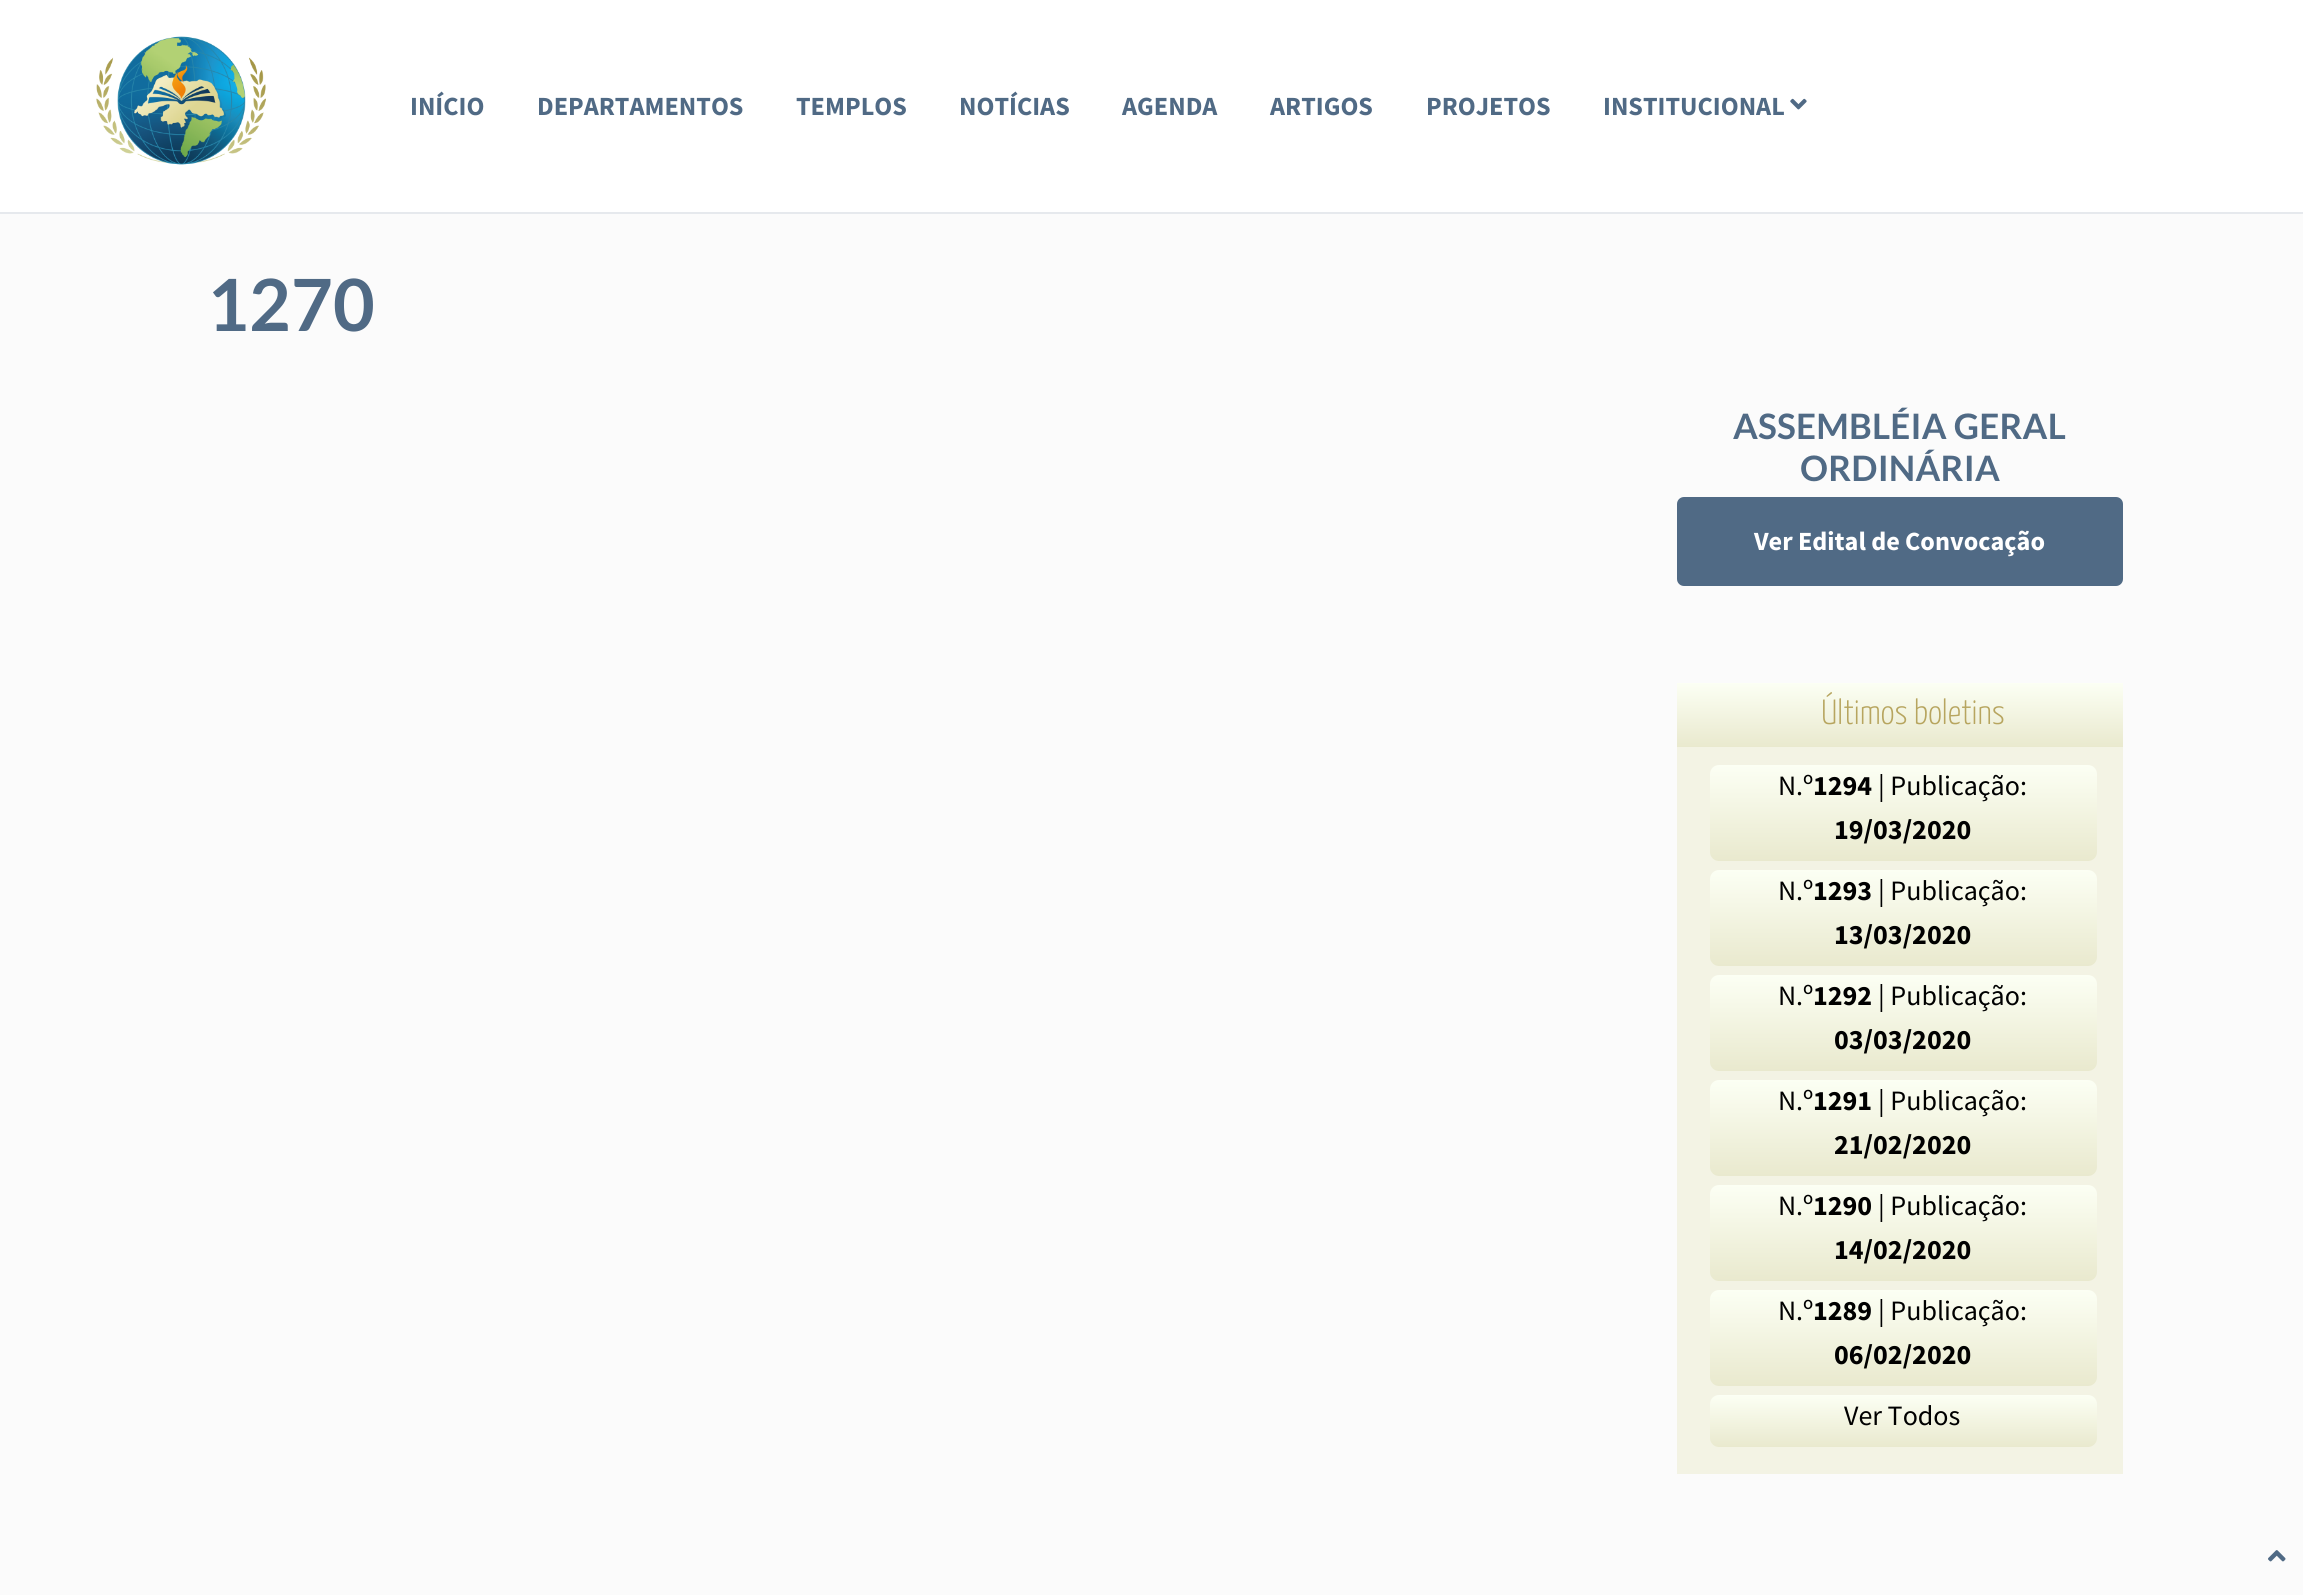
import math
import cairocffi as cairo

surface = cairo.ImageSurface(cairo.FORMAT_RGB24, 2303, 1595)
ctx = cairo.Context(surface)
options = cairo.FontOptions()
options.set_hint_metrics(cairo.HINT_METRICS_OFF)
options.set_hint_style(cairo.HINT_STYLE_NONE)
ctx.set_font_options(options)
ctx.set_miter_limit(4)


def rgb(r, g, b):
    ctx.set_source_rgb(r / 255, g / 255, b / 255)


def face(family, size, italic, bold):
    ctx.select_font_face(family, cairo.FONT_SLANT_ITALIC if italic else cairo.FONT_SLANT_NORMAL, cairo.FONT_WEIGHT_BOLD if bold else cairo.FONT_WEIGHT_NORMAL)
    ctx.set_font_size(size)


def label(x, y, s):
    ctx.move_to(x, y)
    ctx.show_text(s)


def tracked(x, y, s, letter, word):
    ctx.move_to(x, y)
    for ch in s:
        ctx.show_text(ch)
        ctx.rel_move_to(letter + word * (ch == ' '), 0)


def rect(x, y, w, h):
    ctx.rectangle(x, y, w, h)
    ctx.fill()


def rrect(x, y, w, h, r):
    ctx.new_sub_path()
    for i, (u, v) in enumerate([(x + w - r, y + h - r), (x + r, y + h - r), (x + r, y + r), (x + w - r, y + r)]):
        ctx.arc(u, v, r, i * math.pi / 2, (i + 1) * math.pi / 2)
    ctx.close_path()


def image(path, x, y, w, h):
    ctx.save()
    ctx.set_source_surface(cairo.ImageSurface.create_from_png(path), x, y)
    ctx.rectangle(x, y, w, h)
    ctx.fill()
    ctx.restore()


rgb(251, 251, 251)
ctx.paint()
rgb(255, 255, 255)
rect(0, 0, 2303, 212)
rgb(230, 233, 237)
rect(0, 212, 2303, 2)
image('image0.png', 96, 36, 170, 129)
face('Source Sans Pro', 26.25, 0, 1)
rgb(80, 106, 133)
label(410, 115, 'INÍCIO')
label(537, 115, 'DEPARTAMENTOS')
label(796, 115, 'TEMPLOS')
label(959, 115, 'NOTÍCIAS')
label(1122, 115, 'AGENDA')
label(1270, 115, 'ARTIGOS')
label(1426, 115, 'PROJETOS')
label(1603, 115, 'INSTITUCIONAL')
image('image1.png', 1790, 98, 17, 12)
face('Lato', 72, 0, 1)
tracked(207, 331, '1270', 0.2, 0)
face('Lato', 35, 0, 1)
tracked(1733, 439, 'ASSEMBLÉIA GERAL', 0.2, 0)
tracked(1800, 481, 'ORDINÁRIA', 0.2, 0)
rrect(1677, 497, 446, 89, 7)
ctx.fill()
face('Source Sans Pro', 26.25, 0, 1)
rgb(255, 255, 255)
label(1754, 550, 'Ver Edital de Convocação')
gradient = cairo.LinearGradient(1906, 683, 1906, 747)
gradient.add_color_stop_rgba(0, 0.988, 1, 0.957, 1)
gradient.add_color_stop_rgba(1, 0.914, 0.914, 0.808, 1)
ctx.set_source(gradient)
rect(1677, 683, 446, 64)
face('Yanone Kaffeesatz Light', 35, 0, 0)
rgb(183, 165, 95)
label(1821, 724, 'Últimos boletins')
rgb(243, 243, 228)
rect(1677, 747, 446, 727)
gradient = cairo.LinearGradient(1903, 765, 1903, 861)
gradient.add_color_stop_rgba(0, 0.988, 1, 0.957, 1)
gradient.add_color_stop_rgba(1, 0.914, 0.914, 0.808, 1)
ctx.set_source(gradient)
rrect(1710, 765, 387, 96, 9)
ctx.fill()
face('Source Sans Pro', 28, 0, 0)
rgb(0, 0, 0)
label(1778, 795, 'N.º')
face('Source Sans Pro', 28, 0, 1)
label(1813, 795, '1294')
face('Source Sans Pro', 28, 0, 0)
label(1878, 795, '| Publicação:')
face('Source Sans Pro', 28, 0, 1)
label(1834, 839, '19/03/2020')
gradient = cairo.LinearGradient(1903, 870, 1903, 966)
gradient.add_color_stop_rgba(0, 0.988, 1, 0.957, 1)
gradient.add_color_stop_rgba(1, 0.914, 0.914, 0.808, 1)
ctx.set_source(gradient)
rrect(1710, 870, 387, 96, 9)
ctx.fill()
face('Source Sans Pro', 28, 0, 0)
rgb(0, 0, 0)
label(1778, 900, 'N.º')
face('Source Sans Pro', 28, 0, 1)
label(1813, 900, '1293')
face('Source Sans Pro', 28, 0, 0)
label(1878, 900, '| Publicação:')
face('Source Sans Pro', 28, 0, 1)
label(1834, 944, '13/03/2020')
gradient = cairo.LinearGradient(1903, 975, 1903, 1071)
gradient.add_color_stop_rgba(0, 0.988, 1, 0.957, 1)
gradient.add_color_stop_rgba(1, 0.914, 0.914, 0.808, 1)
ctx.set_source(gradient)
rrect(1710, 975, 387, 96, 9)
ctx.fill()
face('Source Sans Pro', 28, 0, 0)
rgb(0, 0, 0)
label(1778, 1005, 'N.º')
face('Source Sans Pro', 28, 0, 1)
label(1813, 1005, '1292')
face('Source Sans Pro', 28, 0, 0)
label(1878, 1005, '| Publicação:')
face('Source Sans Pro', 28, 0, 1)
label(1834, 1049, '03/03/2020')
gradient = cairo.LinearGradient(1903, 1080, 1903, 1176)
gradient.add_color_stop_rgba(0, 0.988, 1, 0.957, 1)
gradient.add_color_stop_rgba(1, 0.914, 0.914, 0.808, 1)
ctx.set_source(gradient)
rrect(1710, 1080, 387, 96, 9)
ctx.fill()
face('Source Sans Pro', 28, 0, 0)
rgb(0, 0, 0)
label(1778, 1110, 'N.º')
face('Source Sans Pro', 28, 0, 1)
label(1813, 1110, '1291')
face('Source Sans Pro', 28, 0, 0)
label(1878, 1110, '| Publicação:')
face('Source Sans Pro', 28, 0, 1)
label(1834, 1154, '21/02/2020')
gradient = cairo.LinearGradient(1903, 1185, 1903, 1281)
gradient.add_color_stop_rgba(0, 0.988, 1, 0.957, 1)
gradient.add_color_stop_rgba(1, 0.914, 0.914, 0.808, 1)
ctx.set_source(gradient)
rrect(1710, 1185, 387, 96, 9)
ctx.fill()
face('Source Sans Pro', 28, 0, 0)
rgb(0, 0, 0)
label(1778, 1215, 'N.º')
face('Source Sans Pro', 28, 0, 1)
label(1813, 1215, '1290')
face('Source Sans Pro', 28, 0, 0)
label(1878, 1215, '| Publicação:')
face('Source Sans Pro', 28, 0, 1)
label(1834, 1259, '14/02/2020')
gradient = cairo.LinearGradient(1903, 1290, 1903, 1386)
gradient.add_color_stop_rgba(0, 0.988, 1, 0.957, 1)
gradient.add_color_stop_rgba(1, 0.914, 0.914, 0.808, 1)
ctx.set_source(gradient)
rrect(1710, 1290, 387, 96, 9)
ctx.fill()
face('Source Sans Pro', 28, 0, 0)
rgb(0, 0, 0)
label(1778, 1320, 'N.º')
face('Source Sans Pro', 28, 0, 1)
label(1813, 1320, '1289')
face('Source Sans Pro', 28, 0, 0)
label(1878, 1320, '| Publicação:')
face('Source Sans Pro', 28, 0, 1)
label(1834, 1364, '06/02/2020')
gradient = cairo.LinearGradient(1903, 1395, 1903, 1447)
gradient.add_color_stop_rgba(0, 0.988, 1, 0.957, 1)
gradient.add_color_stop_rgba(1, 0.914, 0.914, 0.808, 1)
ctx.set_source(gradient)
rrect(1710, 1395, 387, 52, 9)
ctx.fill()
face('Source Sans Pro', 28, 0, 0)
rgb(0, 0, 0)
label(1844, 1425, 'Ver Todos')
image('image2.png', 2268, 1550, 18, 12)
surface.write_to_png('render.png')
